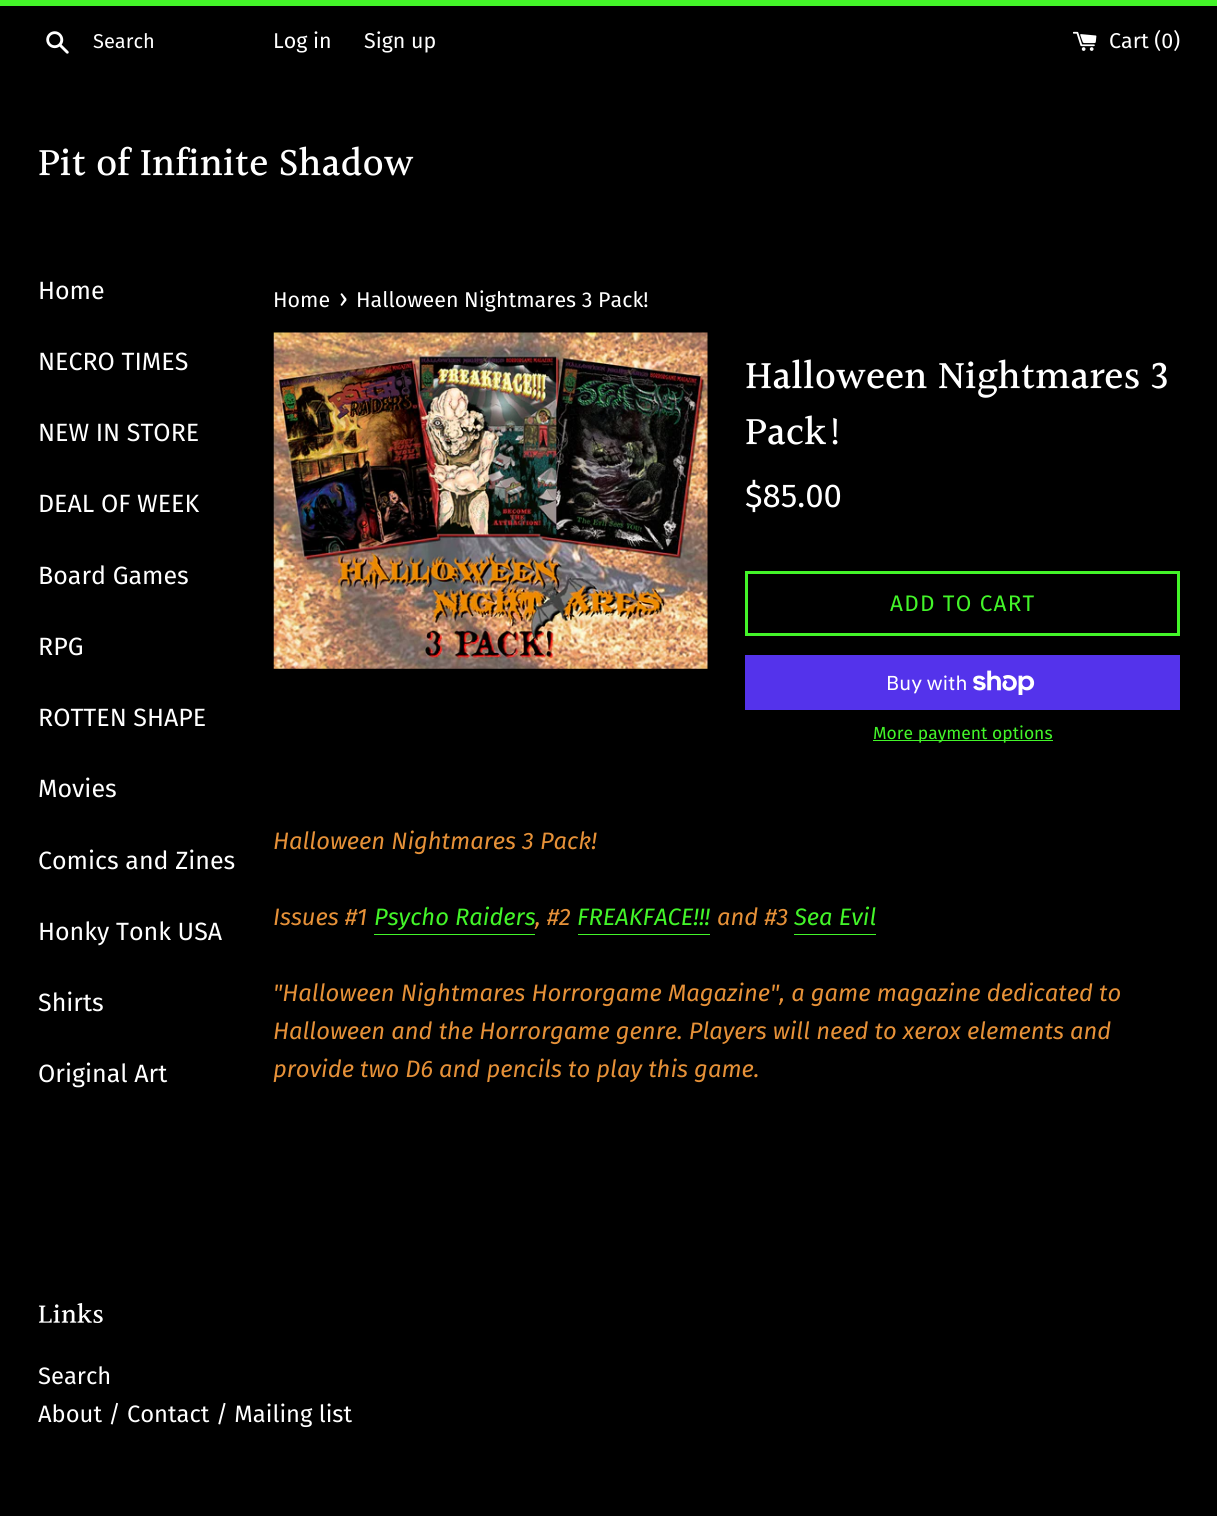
import math
import cairocffi as cairo

surface = cairo.ImageSurface(cairo.FORMAT_RGB24, 1217, 1516)
ctx = cairo.Context(surface)
options = cairo.FontOptions()
options.set_hint_metrics(cairo.HINT_METRICS_OFF)
options.set_hint_style(cairo.HINT_STYLE_NONE)
ctx.set_font_options(options)
ctx.set_miter_limit(4)


def rgb(r, g, b):
    ctx.set_source_rgb(r / 255, g / 255, b / 255)


def face(family, size, italic, bold):
    ctx.select_font_face(family, cairo.FONT_SLANT_ITALIC if italic else cairo.FONT_SLANT_NORMAL, cairo.FONT_WEIGHT_BOLD if bold else cairo.FONT_WEIGHT_NORMAL)
    ctx.set_font_size(size)


def label(x, y, s):
    ctx.move_to(x, y)
    ctx.show_text(s)


def tracked(x, y, s, letter, word):
    ctx.move_to(x, y)
    for ch in s:
        ctx.show_text(ch)
        ctx.rel_move_to(letter + word * (ch == ' '), 0)


def rect(x, y, w, h):
    ctx.rectangle(x, y, w, h)
    ctx.fill()


def image(path, x, y, w, h):
    ctx.save()
    ctx.set_source_surface(cairo.ImageSurface.create_from_png(path), x, y)
    ctx.rectangle(x, y, w, h)
    ctx.fill()
    ctx.restore()


rgb(0, 0, 0)
ctx.paint()
rgb(67, 245, 41)
rect(0, 0, 1217, 6)
image('image0.png', 46, 31, 23, 23)
face('Fira Sans', 20, 0, 0)
rgb(255, 255, 255)
label(93, 48, 'Search')
face('Fira Sans', 21.4, 0, 0)
label(273, 48, 'Log in')
label(364, 48, 'Sign up')
image('image1.png', 1073, 31, 24, 20)
label(1109, 48, 'Cart (0)')
face('Halant Medium', 40, 0, 0)
label(38, 177, 'Pit of Infinite Shadow')
face('Fira Sans', 25, 0, 0)
label(38, 299, 'Home')
label(38, 370, 'NECRO TIMES')
label(38, 441, 'NEW IN STORE')
label(38, 512, 'DEAL OF WEEK')
label(38, 584, 'Board Games')
label(38, 655, 'RPG')
label(38, 726, 'ROTTEN SHAPE')
label(38, 797, 'Movies')
label(38, 869, 'Comics and Zines')
label(38, 940, 'Honky Tonk USA')
label(38, 1011, 'Shirts')
label(38, 1082, 'Original Art')
face('Fira Sans', 21.4, 0, 0)
label(273, 307, 'Home')
face('Fira Sans', 26, 0, 0)
label(339, 307, '›')
face('Fira Sans', 21.4, 0, 0)
label(356, 307, 'Halloween Nightmares 3 Pack!')
image('image2.png', 273, 332, 435, 337)
face('Halant Medium', 40, 0, 0)
label(745, 390, 'Halloween Nightmares 3')
label(745, 446, 'Pack!')
face('Fira Sans', 33, 0, 0)
label(745, 507, '$85.00')
ctx.rectangle(746.5, 572.5, 432, 62)
rgb(67, 245, 41)
ctx.set_line_width(3)
ctx.stroke()
face('Fira Sans', 22.5, 0, 0)
tracked(890, 611, 'ADD TO CART', 1.25, 0)
rgb(84, 51, 235)
rect(745, 655, 435, 55)
face('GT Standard', 20, 0, 0)
rgb(255, 255, 255)
label(886, 690, 'Buy with')
image('image3.png', 973, 670, 62, 25)
rgb(67, 245, 41)
rect(873, 740, 180, 1)
face('Fira Sans', 17.5, 0, 0)
label(873, 739, 'More payment options')
face('Fira Sans', 23.75, 1, 0)
rgb(230, 145, 56)
label(273, 849, 'Halloween Nightmares 3 Pack!')
label(273, 925, 'Issues #1')
rgb(67, 245, 41)
label(374, 925, 'Psycho Raiders')
rect(374, 934, 161, 1)
rgb(230, 145, 56)
label(535, 925, ', #2')
rgb(67, 245, 41)
label(577, 925, 'FREAKFACE!!!')
rect(578, 934, 132, 1)
rgb(230, 145, 56)
label(717, 925, 'and #3')
rgb(67, 245, 41)
label(794, 925, 'Sea Evil')
rect(794, 934, 82, 1)
rgb(230, 145, 56)
label(273, 1001, '"Halloween Nightmares Horrorgame Magazine", a game magazine dedicated to')
label(273, 1039, 'Halloween and the Horrorgame genre. Players will need to xerox elements and')
label(273, 1077, 'provide two D6 and pencils to play this game.')
face('Halant Medium', 27.5, 0, 0)
rgb(255, 255, 255)
label(38, 1324, 'Links')
face('Fira Sans', 23.75, 0, 0)
label(38, 1384, 'Search')
label(38, 1422, 'About / Contact / Mailing list')
surface.write_to_png('render.png')
